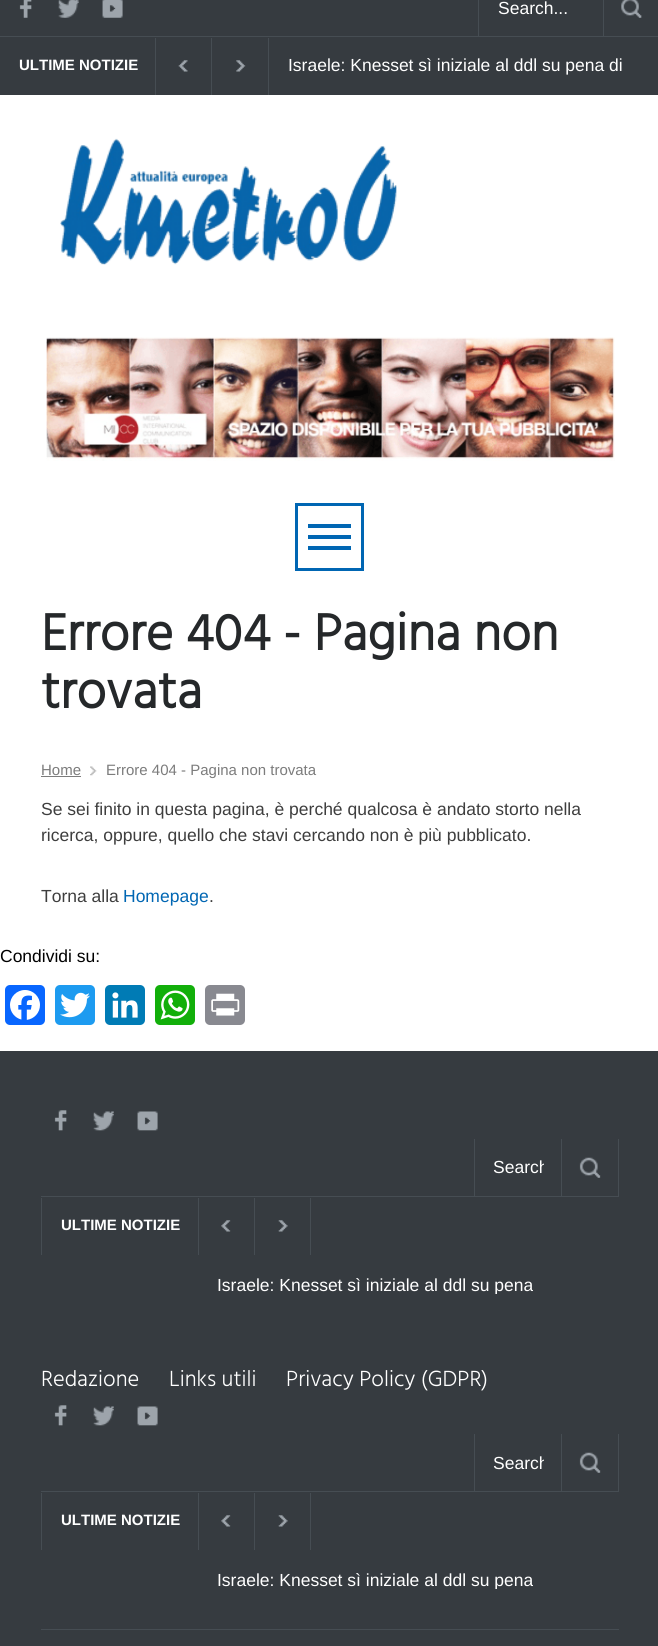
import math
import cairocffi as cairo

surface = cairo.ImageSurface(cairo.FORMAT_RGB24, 658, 1646)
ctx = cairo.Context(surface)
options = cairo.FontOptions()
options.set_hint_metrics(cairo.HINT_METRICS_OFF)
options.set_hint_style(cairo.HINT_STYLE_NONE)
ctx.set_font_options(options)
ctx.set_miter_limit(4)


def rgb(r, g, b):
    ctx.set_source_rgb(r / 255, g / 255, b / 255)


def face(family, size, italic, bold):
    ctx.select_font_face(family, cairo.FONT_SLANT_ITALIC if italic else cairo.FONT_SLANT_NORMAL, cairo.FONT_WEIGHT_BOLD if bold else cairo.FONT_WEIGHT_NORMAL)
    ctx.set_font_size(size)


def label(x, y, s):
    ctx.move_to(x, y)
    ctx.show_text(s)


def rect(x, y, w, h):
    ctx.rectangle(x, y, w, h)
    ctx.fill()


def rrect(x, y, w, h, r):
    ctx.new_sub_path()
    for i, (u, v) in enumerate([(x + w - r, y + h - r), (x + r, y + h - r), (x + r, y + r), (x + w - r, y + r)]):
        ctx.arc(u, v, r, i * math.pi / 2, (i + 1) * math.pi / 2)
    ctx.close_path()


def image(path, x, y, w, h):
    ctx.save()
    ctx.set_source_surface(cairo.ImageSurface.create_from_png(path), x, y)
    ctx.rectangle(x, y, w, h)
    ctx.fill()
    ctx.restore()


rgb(255, 255, 255)
ctx.paint()
rgb(54, 59, 64)
rect(0, 0, 658, 95)
image('image0.png', 19, 0, 13, 18)
image('image1.png', 58, 0, 21, 18)
image('image2.png', 102, 0, 21, 18)
rgb(70, 77, 83)
rect(478, 0, 1, 36)
rect(603, 0, 1, 36)
face('Liberation Sans', 17.5, 0, 0)
rgb(255, 255, 255)
label(498, 14, 'Search...')
image('image3.png', 621, 0, 21, 18)
rgb(70, 77, 83)
rect(0, 36, 658, 1)
rect(155, 38, 1, 57)
face('Liberation Sans', 15, 0, 1)
rgb(255, 255, 255)
label(19, 70, 'ULTIME NOTIZIE')
rgb(70, 77, 83)
rect(211, 38, 1, 57)
image('image4.png', 178, 60, 10, 12)
rect(268, 38, 1, 57)
image('image5.png', 236, 60, 10, 12)
face('Liberation Sans', 17.5, 0, 0)
rgb(255, 255, 255)
label(288, 71, 'Israele: Knesset sì iniziale al ddl su pena di')
image('image6.png', 60, 138, 337, 127)
image('image7.png', 46, 337, 569, 124)
ctx.rectangle(296.5, 504.5, 66, 65)
rgb(0, 102, 179)
ctx.set_line_width(3)
ctx.stroke()
rect(308, 524, 43, 4)
rect(308, 535, 43, 4)
rect(308, 546, 43, 4)
face('Hind', 52.5, 0, 1)
rgb(37, 40, 42)
label(41, 650, 'Errore 404 - Pagina non')
label(41, 708, 'trovata')
face('Liberation Sans', 15, 0, 0)
rgb(124, 124, 124)
label(41, 775, 'Home')
rect(41, 776, 40, 1)
image('image8.png', 90, 766, 7, 10)
label(106, 775, 'Errore 404 - Pagina non trovata')
face('Liberation Sans', 17.5, 0, 0)
rgb(62, 62, 62)
label(41, 815, 'Se sei finito in questa pagina, è perché qualcosa è andato storto nella')
label(41, 841, 'ricerca, oppure, quello che stavi cercando non è più pubblicato.')
label(41, 902, 'Torna alla')
rgb(0, 102, 179)
label(123, 902, 'Homepage')
rgb(62, 62, 62)
label(209, 902, '.')
rgb(0, 0, 0)
label(0, 962, 'Condividi su:')
rgb(8, 102, 255)
rrect(5, 985, 40, 40, 5)
ctx.fill()
image('image9.png', 10, 990, 30, 30)
rgb(29, 155, 240)
rrect(55, 985, 40, 40, 5)
ctx.fill()
image('image10.png', 60, 992, 30, 26)
rgb(0, 123, 181)
rrect(105, 985, 40, 40, 5)
ctx.fill()
image('image11.png', 112, 992, 26, 26)
rgb(18, 175, 10)
rrect(155, 985, 40, 40, 5)
ctx.fill()
image('image12.png', 160, 990, 30, 30)
rgb(136, 137, 144)
rrect(205, 985, 40, 40, 5)
ctx.fill()
image('image13.png', 211, 993, 29, 23)
rgb(54, 59, 64)
rect(0, 1051, 658, 595)
image('image14.png', 54, 1110, 13, 21)
image('image15.png', 93, 1111, 21, 20)
image('image16.png', 137, 1111, 21, 20)
rgb(70, 77, 83)
rect(618, 1139, 1, 57)
rect(474, 1139, 1, 57)
rect(561, 1139, 1, 57)
ctx.save()
ctx.rectangle(494, 1158, 50, 20)
ctx.clip()
rgb(255, 255, 255)
label(493, 1173, 'Search')
ctx.restore()
image('image17.png', 579, 1157, 22, 21)
rect(41, 1196, 578, 1)
rect(198, 1198, 1, 57)
rect(41, 1198, 1, 57)
face('Liberation Sans', 15, 0, 1)
rgb(255, 255, 255)
label(61, 1230, 'ULTIME NOTIZIE')
rgb(70, 77, 83)
rect(254, 1198, 1, 57)
image('image18.png', 221, 1220, 10, 12)
rect(310, 1198, 1, 57)
image('image19.png', 278, 1220, 10, 12)
ctx.save()
ctx.rectangle(218, 1274, 323, 20)
ctx.clip()
face('Liberation Sans', 17.5, 0, 0)
rgb(255, 255, 255)
label(217, 1291, 'Israele: Knesset sì iniziale al ddl su pena')
ctx.restore()
face('Hind Light', 22.5, 0, 0)
rgb(255, 255, 255)
label(41, 1386, 'Redazione')
label(169, 1386, 'Links utili')
label(286, 1386, 'Privacy Policy (GDPR)')
image('image14.png', 54, 1405, 13, 21)
image('image15.png', 93, 1406, 21, 20)
image('image16.png', 137, 1406, 21, 20)
rgb(70, 77, 83)
rect(618, 1434, 1, 57)
rect(474, 1434, 1, 57)
rect(561, 1434, 1, 57)
ctx.save()
ctx.rectangle(494, 1453, 50, 20)
ctx.clip()
face('Liberation Sans', 17.5, 0, 0)
rgb(255, 255, 255)
label(493, 1469, 'Search')
ctx.restore()
image('image20.png', 579, 1452, 22, 21)
rect(41, 1491, 578, 1)
rect(198, 1493, 1, 57)
rect(41, 1493, 1, 57)
face('Liberation Sans', 15, 0, 1)
rgb(255, 255, 255)
label(61, 1525, 'ULTIME NOTIZIE')
rgb(70, 77, 83)
rect(254, 1493, 1, 57)
image('image18.png', 221, 1515, 10, 12)
rect(310, 1493, 1, 57)
image('image19.png', 278, 1515, 10, 12)
ctx.save()
ctx.rectangle(218, 1569, 323, 20)
ctx.clip()
face('Liberation Sans', 17.5, 0, 0)
rgb(255, 255, 255)
label(217, 1586, 'Israele: Knesset sì iniziale al ddl su pena')
ctx.restore()
rect(41, 1629, 578, 1)
surface.write_to_png('render.png')
